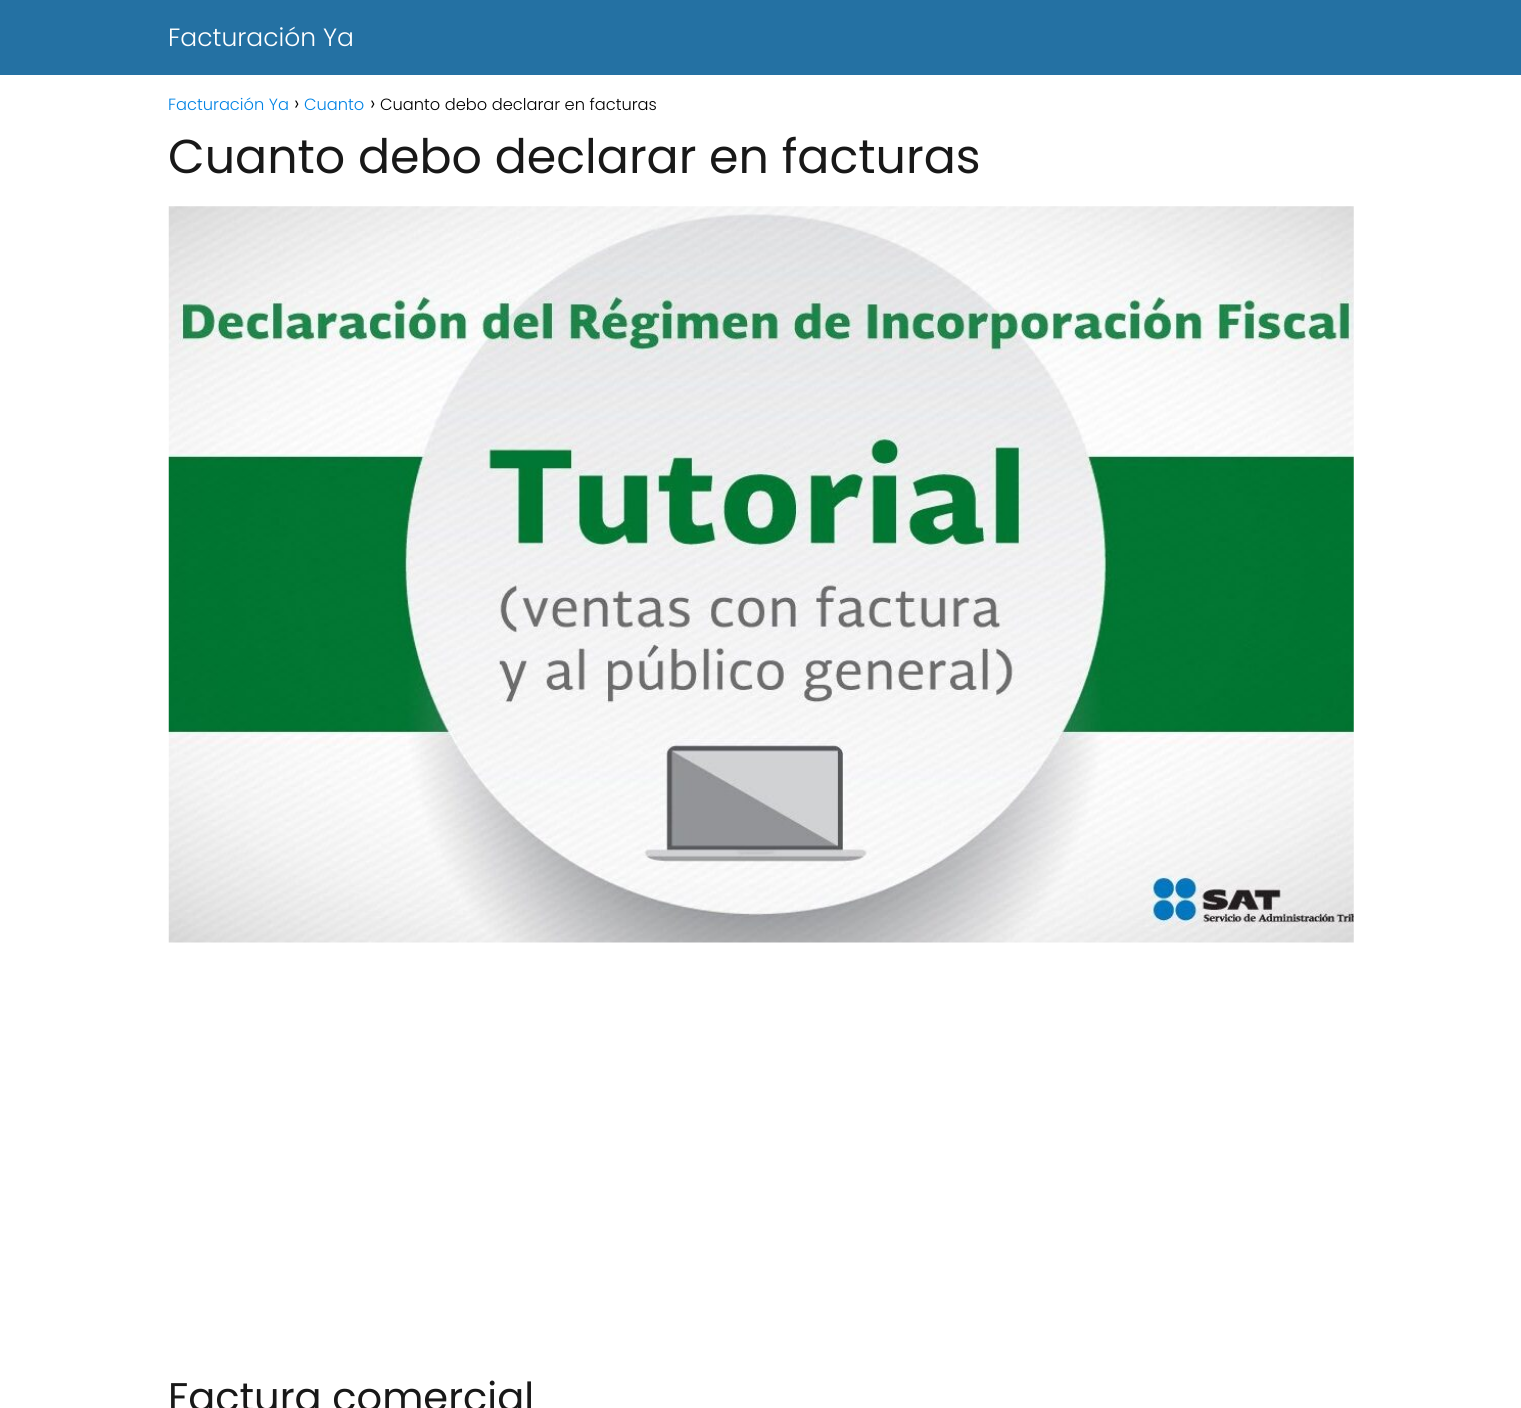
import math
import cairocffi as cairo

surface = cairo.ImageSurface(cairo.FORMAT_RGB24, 1521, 1408)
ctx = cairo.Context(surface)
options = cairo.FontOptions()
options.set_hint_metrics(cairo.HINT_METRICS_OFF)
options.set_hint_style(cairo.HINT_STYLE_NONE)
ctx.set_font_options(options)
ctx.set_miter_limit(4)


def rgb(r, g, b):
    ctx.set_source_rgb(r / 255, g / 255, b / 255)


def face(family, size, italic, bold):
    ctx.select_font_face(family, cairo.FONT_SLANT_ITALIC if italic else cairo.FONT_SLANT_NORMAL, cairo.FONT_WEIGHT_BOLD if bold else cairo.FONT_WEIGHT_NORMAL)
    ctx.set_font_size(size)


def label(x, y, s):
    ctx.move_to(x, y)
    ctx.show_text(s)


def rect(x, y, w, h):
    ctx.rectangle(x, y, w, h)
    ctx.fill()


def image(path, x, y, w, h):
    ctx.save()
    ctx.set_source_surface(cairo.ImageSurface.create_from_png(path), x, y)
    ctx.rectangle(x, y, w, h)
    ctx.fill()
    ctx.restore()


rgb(255, 255, 255)
ctx.paint()
rgb(36, 113, 163)
rect(0, 0, 1521, 75)
face('Poppins Light', 25, 0, 0)
rgb(255, 255, 255)
label(168, 46, 'Facturación Ya')
face('Poppins Light', 16.25, 0, 0)
rgb(1, 131, 228)
label(168, 110, 'Facturación Ya')
face('Poppins Light', 20, 0, 0)
rgb(0, 0, 0)
label(294, 110, '›')
face('Poppins Light', 16.25, 0, 0)
rgb(1, 131, 228)
label(304, 110, 'Cuanto')
face('Poppins Light', 20, 0, 0)
rgb(0, 0, 0)
label(370, 110, '›')
face('Poppins Light', 16.25, 0, 0)
label(380, 110, 'Cuanto debo declarar en facturas')
face('Poppins', 47.5, 0, 0)
rgb(24, 24, 24)
label(168, 173, 'Cuanto debo declarar en facturas')
image('image0.png', 168, 206, 1186, 737)
face('Poppins', 40, 0, 0)
label(168, 1411, 'Factura comercial')
surface.write_to_png('render.png')
